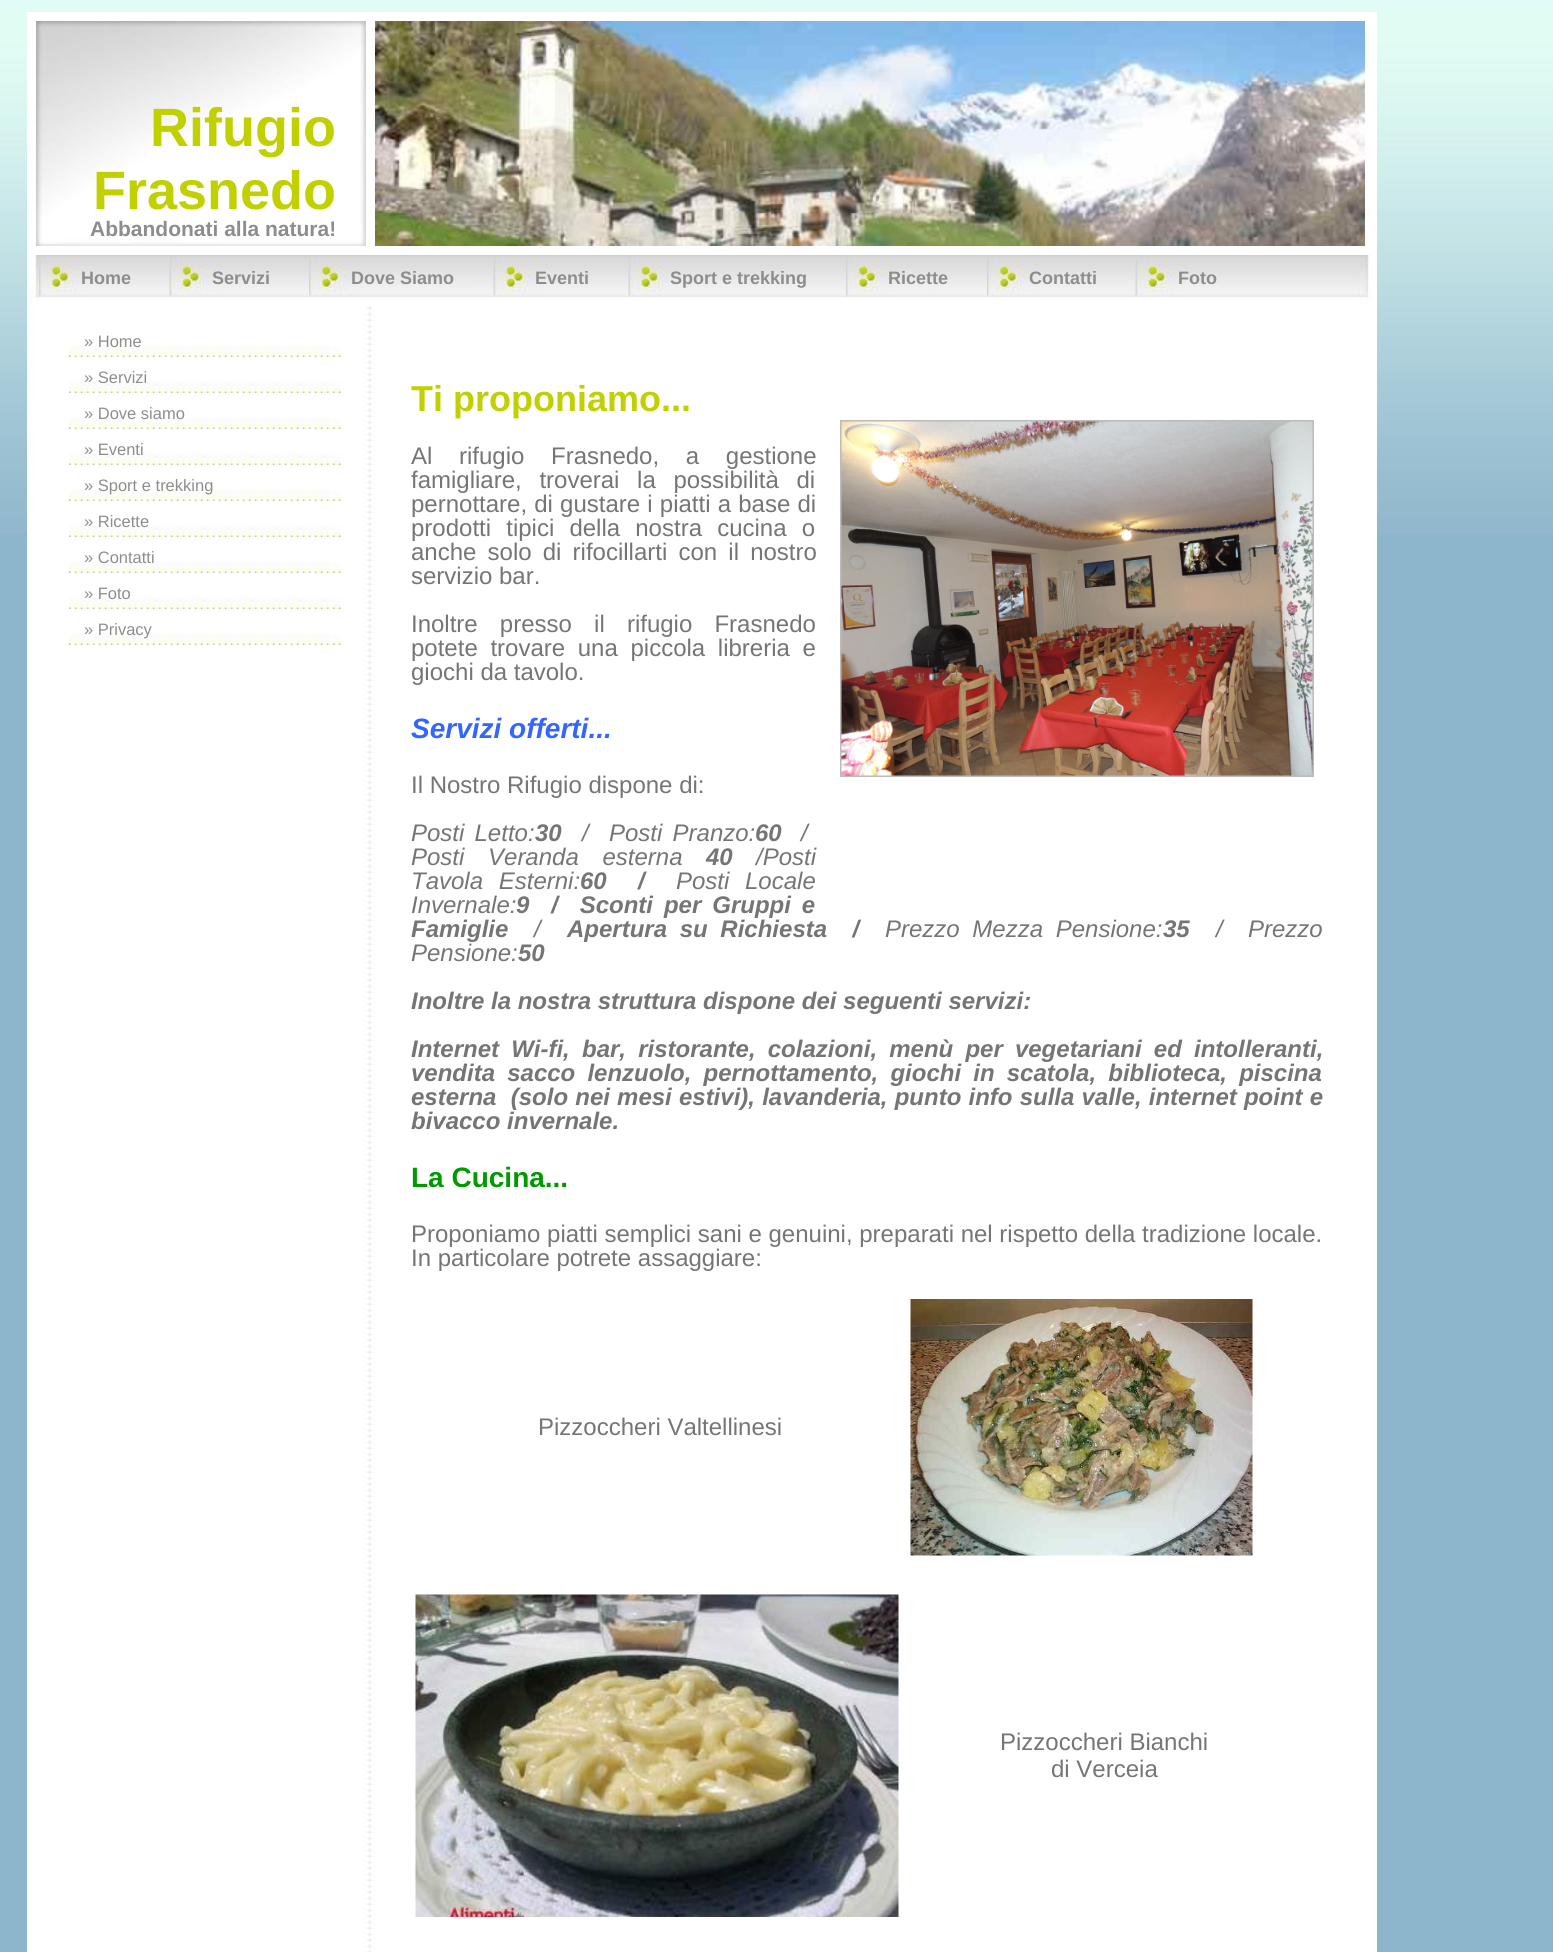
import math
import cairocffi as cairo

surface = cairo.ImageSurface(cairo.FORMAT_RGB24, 1553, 1952)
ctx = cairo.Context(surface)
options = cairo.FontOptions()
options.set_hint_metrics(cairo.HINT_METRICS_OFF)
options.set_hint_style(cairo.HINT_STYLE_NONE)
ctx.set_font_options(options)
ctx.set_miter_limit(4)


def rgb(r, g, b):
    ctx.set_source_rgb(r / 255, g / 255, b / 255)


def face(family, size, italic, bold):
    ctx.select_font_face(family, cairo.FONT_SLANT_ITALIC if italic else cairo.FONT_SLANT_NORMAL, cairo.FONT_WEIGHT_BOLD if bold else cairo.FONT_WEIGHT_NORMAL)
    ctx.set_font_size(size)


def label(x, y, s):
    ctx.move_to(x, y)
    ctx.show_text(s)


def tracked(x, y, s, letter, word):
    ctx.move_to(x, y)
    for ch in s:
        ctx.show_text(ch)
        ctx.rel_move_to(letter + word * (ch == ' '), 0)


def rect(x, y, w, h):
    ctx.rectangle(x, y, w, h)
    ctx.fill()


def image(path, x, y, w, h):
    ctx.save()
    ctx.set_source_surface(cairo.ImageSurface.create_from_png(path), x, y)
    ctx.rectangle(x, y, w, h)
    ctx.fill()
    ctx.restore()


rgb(141, 181, 203)
ctx.paint()
image('image0.png', 0, 0, 1553, 533)
rgb(255, 255, 255)
rect(27, 12, 1350, 243)
image('image1.png', 36, 21, 330, 225)
face('Liberation Sans', 54, 0, 1)
rgb(193, 208, 0)
label(150, 146, 'Rifugio')
label(93, 209, 'Frasnedo')
face('Liberation Sans', 21, 0, 1)
rgb(141, 141, 141)
label(90, 236, 'Abbandonati alla natura!')
image('image2.png', 375, 21, 990, 225)
image('image3.png', 27, 255, 1350, 51)
image('image4.png', 39, 255, 49, 42)
face('Liberation Sans', 18, 0, 1)
label(81, 284, 'Home')
image('image5.png', 169, 255, 50, 42)
label(212, 284, 'Servizi')
image('image6.png', 309, 255, 49, 42)
label(351, 284, 'Dove Siamo')
image('image7.png', 493, 255, 49, 42)
label(535, 284, 'Eventi')
image('image8.png', 628, 255, 49, 42)
label(670, 284, 'Sport e trekking')
image('image9.png', 846, 255, 49, 42)
label(888, 284, 'Ricette')
image('image10.png', 987, 255, 49, 42)
label(1029, 284, 'Contatti')
image('image11.png', 1135, 255, 49, 42)
label(1178, 284, 'Foto')
image('image12.png', 27, 306, 1350, 1646)
image('image13.png', 69, 345, 272, 12)
face('Liberation Sans', 16.5, 0, 0)
label(84, 347, '» Home')
image('image13.png', 69, 381, 272, 12)
label(84, 383, '» Servizi')
image('image13.png', 69, 417, 272, 12)
label(84, 419, '» Dove siamo')
image('image13.png', 69, 453, 272, 12)
label(84, 455, '» Eventi')
image('image13.png', 69, 489, 272, 12)
label(84, 491, '» Sport e trekking')
image('image13.png', 69, 525, 272, 12)
label(84, 527, '» Ricette')
image('image13.png', 69, 561, 272, 12)
label(84, 563, '» Contatti')
image('image13.png', 69, 597, 272, 12)
label(84, 599, '» Foto')
image('image13.png', 69, 633, 272, 12)
label(84, 635, '» Privacy')
face('Liberation Sans', 36, 0, 1)
rgb(193, 208, 0)
label(411, 411, 'Ti proponiamo...')
face('Liberation Sans', 24, 0, 0)
rgb(117, 117, 117)
tracked(411, 464, 'Al rifugio Frasnedo, a gestione', 0, 20)
tracked(411, 488, 'famigliare, troverai la possibilità di', 0, 11)
tracked(411, 512, 'pernottare, di gustare i piatti a base di', 0, 0.5)
tracked(411, 536, 'prodotti tipici della nostra cucina o', 0, 8.5)
tracked(411, 560, 'anche solo di rifocillarti con il nostro', 0, 4.5)
label(411, 584, 'servizio bar.')
ctx.rectangle(841, 421, 472, 355)
rgb(187, 187, 187)
ctx.stroke()
image('image14.png', 841, 421, 472, 355)
rgb(117, 117, 117)
tracked(411, 632, 'Inoltre presso il rifugio Frasnedo', 0, 15.5)
tracked(411, 656, 'potete trovare una piccola libreria e', 0, 6)
label(411, 680, 'giochi da tavolo.')
face('Liberation Sans', 28, 1, 1)
rgb(51, 102, 255)
label(411, 738, 'Servizi offerti...')
face('Liberation Sans', 24, 0, 0)
rgb(117, 117, 117)
label(411, 793, 'Il Nostro Rifugio dispone di:')
face('Liberation Sans', 24, 1, 0)
tracked(411, 841, 'Posti Letto:', 0, 3.5)
face('Liberation Sans', 24, 1, 1)
label(535, 841, '30')
face('Liberation Sans', 24, 1, 0)
tracked(582, 841, '/  Posti Pranzo:', 0, 3.5)
face('Liberation Sans', 24, 1, 1)
label(755, 841, '60')
face('Liberation Sans', 24, 1, 0)
label(801, 841, '/')
tracked(411, 865, 'Posti Veranda esterna', 0, 17)
face('Liberation Sans', 24, 1, 1)
label(706, 865, '40')
face('Liberation Sans', 24, 1, 0)
label(756, 865, '/Posti')
tracked(411, 889, 'Tavola Esterni:', 0, 9)
face('Liberation Sans', 24, 1, 1)
tracked(580, 889, '60  /', 0, 9)
face('Liberation Sans', 24, 1, 0)
tracked(676, 889, 'Posti Locale', 0, 9)
label(411, 913, 'Invernale:')
face('Liberation Sans', 24, 1, 1)
tracked(516, 913, '9  /  Sconti per Gruppi e', 0, 4.25)
label(411, 937, 'Famiglie')
face('Liberation Sans', 24, 1, 0)
label(534, 937, '/')
face('Liberation Sans', 24, 1, 1)
tracked(567, 937, 'Apertura su Richiesta  /', 0, 6)
face('Liberation Sans', 24, 1, 0)
tracked(885, 937, 'Prezzo Mezza Pensione:', 0, 6)
face('Liberation Sans', 24, 1, 1)
label(1163, 937, '35')
face('Liberation Sans', 24, 1, 0)
tracked(1216, 937, '/  Prezzo', 0, 6)
label(411, 961, 'Pensione:')
face('Liberation Sans', 24, 1, 1)
label(518, 961, '50')
label(411, 1009, 'Inoltre la nostra struttura dispone dei seguenti servizi:')
tracked(411, 1057, 'Internet Wi-fi', 0, 5.5)
label(563, 1057, ',')
tracked(582, 1057, 'bar, ristorante, colazioni, menù per vegetariani ed intolleranti,', 0, 5.5)
tracked(411, 1081, 'vendita sacco lenzuolo, pernottamento, giochi in scatola, biblioteca, piscina', 0, 5.5)
tracked(411, 1105, 'esterna  (solo nei mesi estivi), lavanderia, punto info sulla valle, internet point e', 0, 0.5)
label(411, 1129, 'bivacco invernale.')
face('Liberation Sans', 28, 0, 1)
rgb(0, 153, 0)
label(411, 1187, 'La Cucina...')
face('Liberation Sans', 24, 0, 0)
rgb(117, 117, 117)
label(411, 1242, 'Proponiamo piatti semplici sani e genuini, preparati nel rispetto della tradizione locale.')
label(411, 1266, 'In particolare potrete assaggiare:')
label(538, 1435, 'Pizzoccheri Valtellinesi')
image('image15.png', 910, 1299, 343, 257)
image('image16.png', 415, 1594, 484, 323)
label(1000, 1750, 'Pizzoccheri Bianchi')
label(1051, 1777, 'di Verceia')
surface.write_to_png('render.png')
